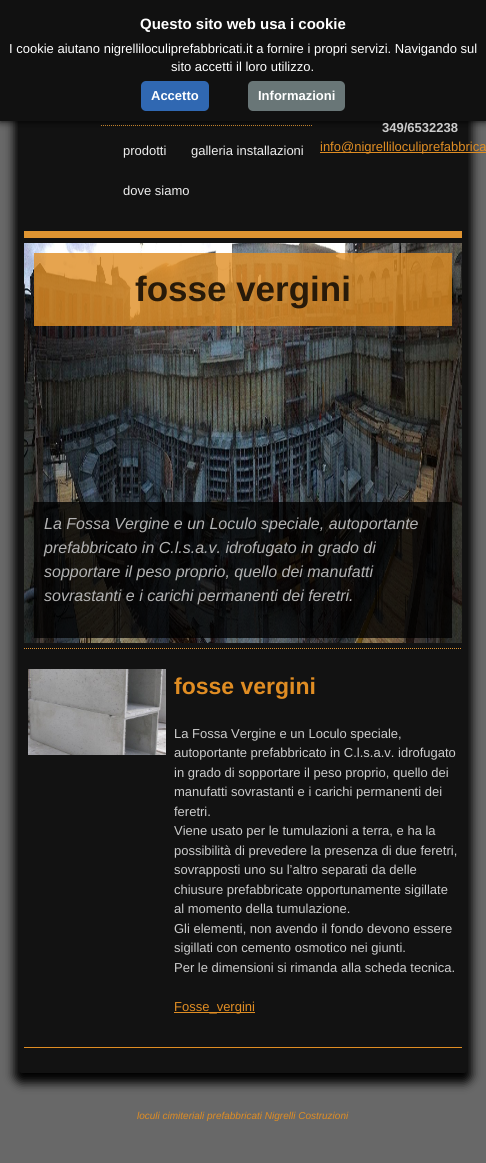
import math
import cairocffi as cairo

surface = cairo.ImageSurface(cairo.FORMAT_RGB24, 486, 1163)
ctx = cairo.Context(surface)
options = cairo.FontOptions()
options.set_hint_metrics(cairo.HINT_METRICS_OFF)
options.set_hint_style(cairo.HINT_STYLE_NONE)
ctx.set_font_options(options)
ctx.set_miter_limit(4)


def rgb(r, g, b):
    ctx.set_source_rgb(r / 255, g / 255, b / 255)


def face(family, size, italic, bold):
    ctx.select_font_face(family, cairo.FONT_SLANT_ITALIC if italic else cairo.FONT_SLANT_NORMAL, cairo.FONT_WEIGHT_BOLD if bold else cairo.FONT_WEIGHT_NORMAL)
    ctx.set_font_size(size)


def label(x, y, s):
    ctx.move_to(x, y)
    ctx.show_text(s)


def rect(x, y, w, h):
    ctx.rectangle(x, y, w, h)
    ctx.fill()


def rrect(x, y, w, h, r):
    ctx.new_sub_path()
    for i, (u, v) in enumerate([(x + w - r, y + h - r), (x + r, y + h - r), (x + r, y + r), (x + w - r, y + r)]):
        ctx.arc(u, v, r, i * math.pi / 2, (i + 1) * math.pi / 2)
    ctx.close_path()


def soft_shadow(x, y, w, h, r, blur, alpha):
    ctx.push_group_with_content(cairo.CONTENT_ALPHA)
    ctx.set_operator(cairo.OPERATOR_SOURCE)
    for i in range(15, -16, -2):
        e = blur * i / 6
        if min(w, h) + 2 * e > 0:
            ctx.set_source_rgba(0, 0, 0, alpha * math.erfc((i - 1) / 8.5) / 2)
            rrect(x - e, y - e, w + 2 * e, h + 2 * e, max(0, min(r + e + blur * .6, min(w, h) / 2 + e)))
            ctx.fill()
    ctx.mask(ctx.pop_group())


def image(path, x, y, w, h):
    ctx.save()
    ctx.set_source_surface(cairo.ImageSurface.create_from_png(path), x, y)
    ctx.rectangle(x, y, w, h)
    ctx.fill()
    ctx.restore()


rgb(104, 104, 104)
ctx.paint()
rgb(0, 0, 0)
soft_shadow(14, 15, 458, 1068, 8, 5, 1)
rgb(18, 18, 18)
rrect(19, 15, 448, 1058, 3)
ctx.fill()
ctx.new_path()
ctx.move_to(101, 125.5)
ctx.line_to(312, 125.5)
rgb(223, 148, 49)
ctx.set_line_width(1)
ctx.set_dash([1, 1])
ctx.stroke()
rgb(0, 0, 0)
soft_shadow(0, 0, 486, 121, 0, 4, 1)
rgb(17, 17, 17)
rect(0, 0, 486, 121)
face('Liberation Sans', 15, 0, 1)
rgb(255, 255, 255)
label(140, 29, 'Questo sito web usa i cookie')
face('Liberation Sans', 13, 0, 0)
label(9, 53, 'I cookie aiutano nigrelliloculiprefabbricati.it a fornire i propri servizi. Navigando sul')
label(171, 71, 'sito accetti il loro utilizzo.')
rgb(48, 104, 178)
rrect(141, 81, 68, 30, 5)
ctx.fill()
face('Liberation Sans', 13, 0, 1)
rgb(255, 255, 255)
label(151, 100, 'Accetto')
rgb(105, 118, 119)
rrect(248, 81, 97, 30, 5)
ctx.fill()
rgb(255, 255, 255)
label(258, 100, 'Informazioni')
rgb(223, 148, 49)
rect(24, 231, 438, 7)
rgb(204, 204, 204)
label(382, 132, '349/6532238')
rgb(224, 141, 35)
rect(320, 152, 166, 1)
face('Liberation Sans', 13, 0, 0)
label(320, 151, 'info@nigrelliloculiprefabbrica')
rgb(238, 238, 238)
label(123, 155, 'prodotti')
label(191, 155, 'galleria installazioni')
label(123, 195, 'dove siamo')
ctx.new_path()
ctx.move_to(24, 648.5)
ctx.line_to(462, 648.5)
rgb(223, 148, 49)
ctx.stroke()
image('image0.png', 24, 243, 438, 400)
ctx.set_source_rgba(0.878, 0.553, 0.137, 0.8)
rect(34, 253, 418, 73)
face('Liberation Sans', 35, 0, 1)
rgb(40, 26, 9)
label(135, 301, 'fosse vergini')
ctx.set_source_rgba(0, 0, 0, 0.8)
rect(34, 502, 418, 136)
face('Liberation Sans', 16, 1, 0)
rgb(179, 179, 179)
label(44, 529, 'La Fossa Vergine e un Loculo speciale, autoportante')
label(44, 553, 'prefabbricato in C.l.s.a.v. idrofugato in grado di')
label(44, 577, 'sopportare il peso proprio, quello dei manufatti')
label(44, 601, 'sovrastanti e i carichi permanenti dei feretri.')
image('image1.png', 28, 669, 138, 86)
face('Liberation Sans', 23, 0, 1)
rgb(224, 141, 35)
label(174, 694, 'fosse vergini')
face('Liberation Sans', 13, 0, 0)
rgb(204, 204, 204)
label(174, 738, 'La Fossa Vergine e un Loculo speciale,')
label(174, 757, 'autoportante prefabbricato in C.l.s.a.v. idrofugato')
label(174, 777, 'in grado di sopportare il peso proprio, quello dei')
label(174, 796, 'manufatti sovrastanti e i carichi permanenti dei')
label(174, 816, 'feretri.')
label(174, 835, 'Viene usato per le tumulazioni a terra, e ha la')
label(174, 855, 'possibilità di prevedere la presenza di due feretri,')
label(174, 874, 'sovrapposti uno su l’altro separati da delle')
label(174, 894, 'chiusure prefabbricate opportunamente sigillate')
label(174, 913, 'al momento della tumulazione.')
label(174, 933, 'Gli elementi, non avendo il fondo devono essere')
label(174, 952, 'sigillati con cemento osmotico nei giunti.')
label(174, 972, 'Per le dimensioni si rimanda alla scheda tecnica.')
rgb(224, 141, 35)
rect(174, 1012, 81, 1)
label(174, 1011, 'Fosse_vergini')
rect(24, 1047, 438, 1)
face('Liberation Sans', 10, 1, 0)
label(137, 1119, 'loculi cimiteriali prefabbricati Nigrelli Costruzioni')
surface.write_to_png('render.png')
